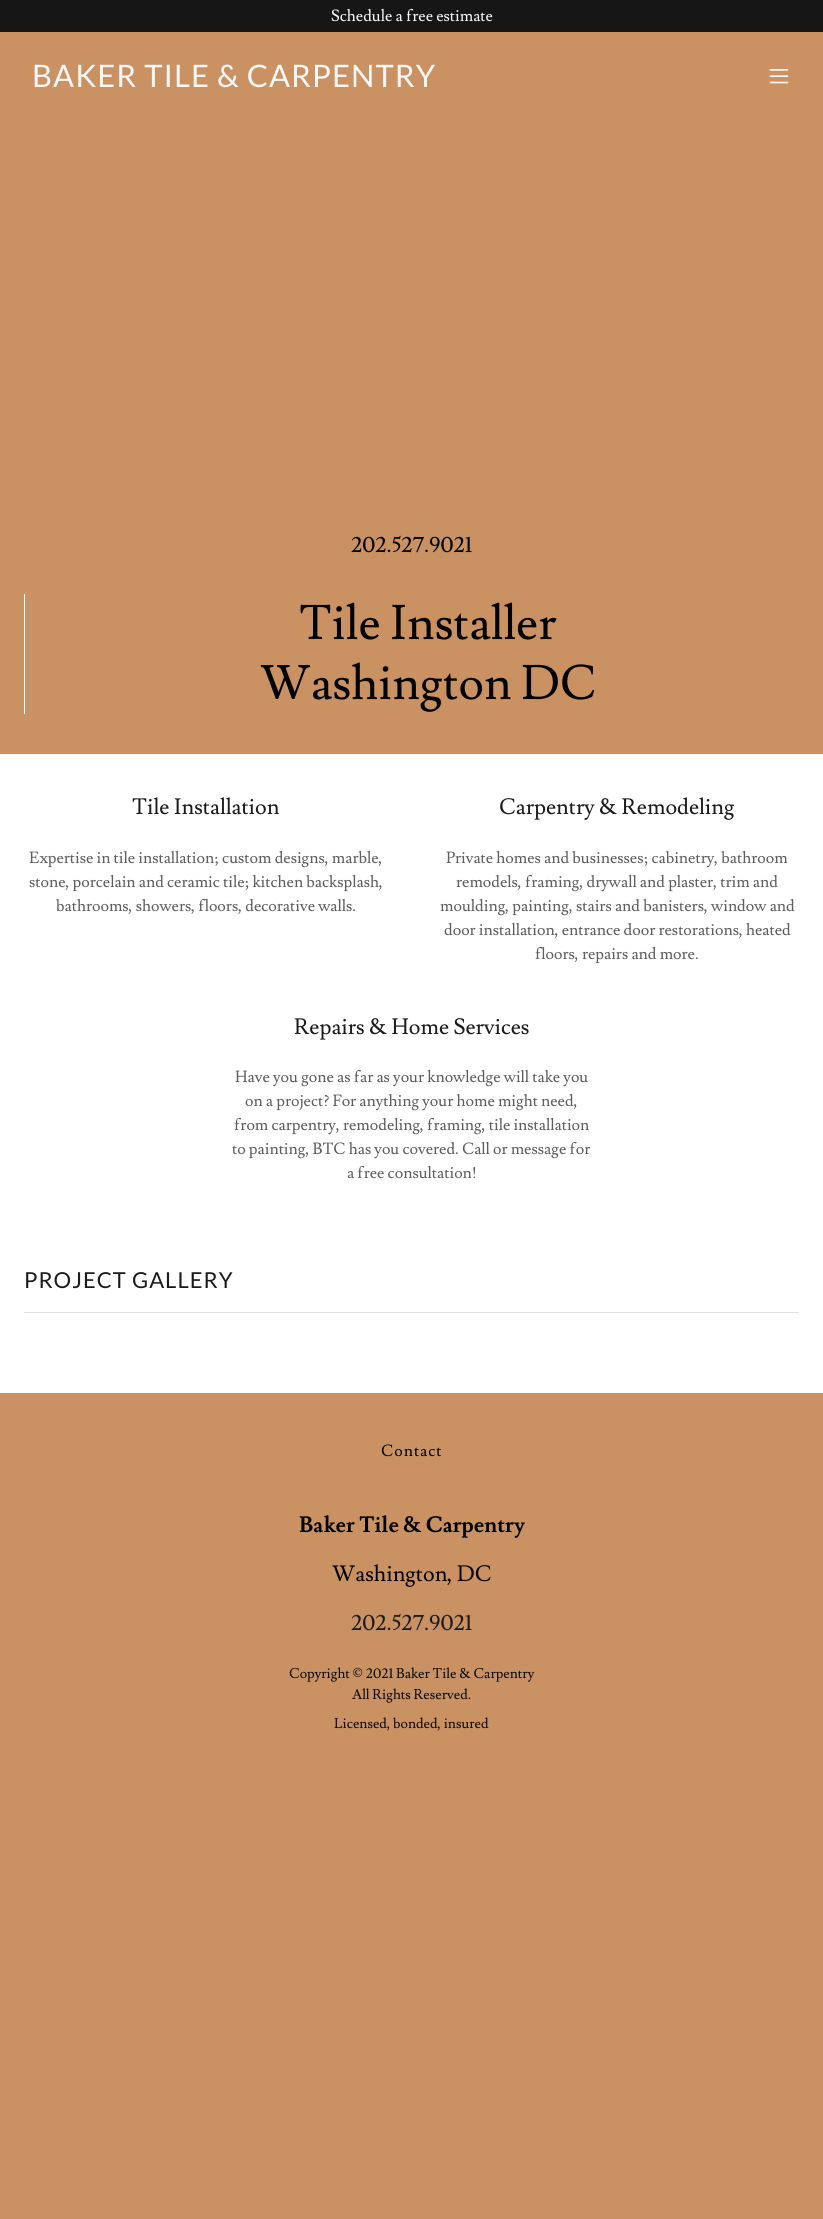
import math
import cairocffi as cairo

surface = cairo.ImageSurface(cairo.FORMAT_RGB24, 823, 2219)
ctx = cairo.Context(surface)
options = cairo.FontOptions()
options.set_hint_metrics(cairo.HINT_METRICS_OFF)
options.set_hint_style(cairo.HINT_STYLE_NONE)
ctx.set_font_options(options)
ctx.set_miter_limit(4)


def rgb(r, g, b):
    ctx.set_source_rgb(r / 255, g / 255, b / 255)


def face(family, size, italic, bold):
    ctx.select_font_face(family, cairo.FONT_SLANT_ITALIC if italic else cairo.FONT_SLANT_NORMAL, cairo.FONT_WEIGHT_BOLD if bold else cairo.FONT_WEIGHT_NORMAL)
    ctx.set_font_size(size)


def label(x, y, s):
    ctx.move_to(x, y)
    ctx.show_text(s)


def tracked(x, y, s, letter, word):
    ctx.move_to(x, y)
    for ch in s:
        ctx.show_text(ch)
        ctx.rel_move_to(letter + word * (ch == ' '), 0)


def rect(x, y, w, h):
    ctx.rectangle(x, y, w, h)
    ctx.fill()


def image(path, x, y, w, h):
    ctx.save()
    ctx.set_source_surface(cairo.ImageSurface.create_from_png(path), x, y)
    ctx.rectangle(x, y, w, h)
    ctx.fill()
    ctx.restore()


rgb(202, 145, 99)
ctx.paint()
rgb(22, 22, 22)
rect(0, 0, 823, 32)
face('Lusitana', 16, 0, 0)
rgb(247, 247, 247)
label(331, 21, 'Schedule a free estimate')
face('Lato', 31, 0, 0)
tracked(32, 87, 'BAKER TILE & CARPENTRY', 1, 0)
image('image0.png', 769, 69, 20, 15)
face('Lusitana', 22, 0, 0)
rgb(0, 0, 0)
label(351, 552, '202.527.9021')
rgb(255, 255, 255)
rect(24, 594, 1, 120)
face('Lusitana', 48, 0, 0)
rgb(0, 0, 0)
label(299, 639, 'Tile Installer')
label(260, 699, 'Washington DC')
rgb(255, 255, 255)
rect(0, 754, 823, 639)
face('Lusitana', 22, 0, 0)
rgb(27, 27, 27)
label(132, 814, 'Tile Installation')
face('Lusitana', 16, 0, 0)
rgb(94, 94, 94)
label(29, 863, 'Expertise in tile installation; custom designs, marble,')
label(29, 887, 'stone, porcelain and ceramic tile; kitchen backsplash,')
label(56, 911, 'bathrooms, showers, floors, decorative walls.')
face('Lusitana', 22, 0, 0)
rgb(27, 27, 27)
label(499, 814, 'Carpentry & Remodeling')
face('Lusitana', 16, 0, 0)
rgb(94, 94, 94)
label(446, 863, 'Private homes and businesses; cabinetry, bathroom')
label(456, 887, 'remodels, framing, drywall and plaster, trim and')
label(440, 911, 'moulding, painting, stairs and banisters, window and')
label(444, 935, 'door installation, entrance door restorations, heated')
label(535, 959, 'floors, repairs and more.')
face('Lusitana', 22, 0, 0)
rgb(27, 27, 27)
label(294, 1034, 'Repairs & Home Services')
face('Lusitana', 16, 0, 0)
rgb(94, 94, 94)
label(235, 1082, 'Have you gone as far as your knowledge will take you')
label(245, 1106, 'on a project? For anything your home might need,')
label(234, 1130, 'from carpentry, remodeling, framing, tile installation')
label(232, 1154, 'to painting, BTC has you covered. Call or message for')
label(347, 1178, 'a free consultation!')
face('Lato', 22, 0, 0)
rgb(27, 27, 27)
tracked(24, 1288, 'PROJECT GALLERY', 1, 0)
rgb(226, 226, 226)
rect(24, 1312, 775, 1)
face('Lusitana', 16, 0, 0)
rgb(0, 0, 0)
tracked(381, 1456, 'Contact', 1, 0)
face('Lusitana', 22, 0, 1)
label(299, 1532, 'Baker Tile & Carpentry')
face('Lusitana', 22, 0, 0)
label(332, 1581, 'Washington, DC')
rgb(27, 27, 27)
label(351, 1630, '202.527.9021')
face('Lusitana', 14, 0, 0)
rgb(10, 10, 10)
label(289, 1678, 'Copyright © 2021 Baker Tile & Carpentry')
label(352, 1699, 'All Rights Reserved.')
label(334, 1728, 'Licensed, bonded, insured')
surface.write_to_png('render.png')
